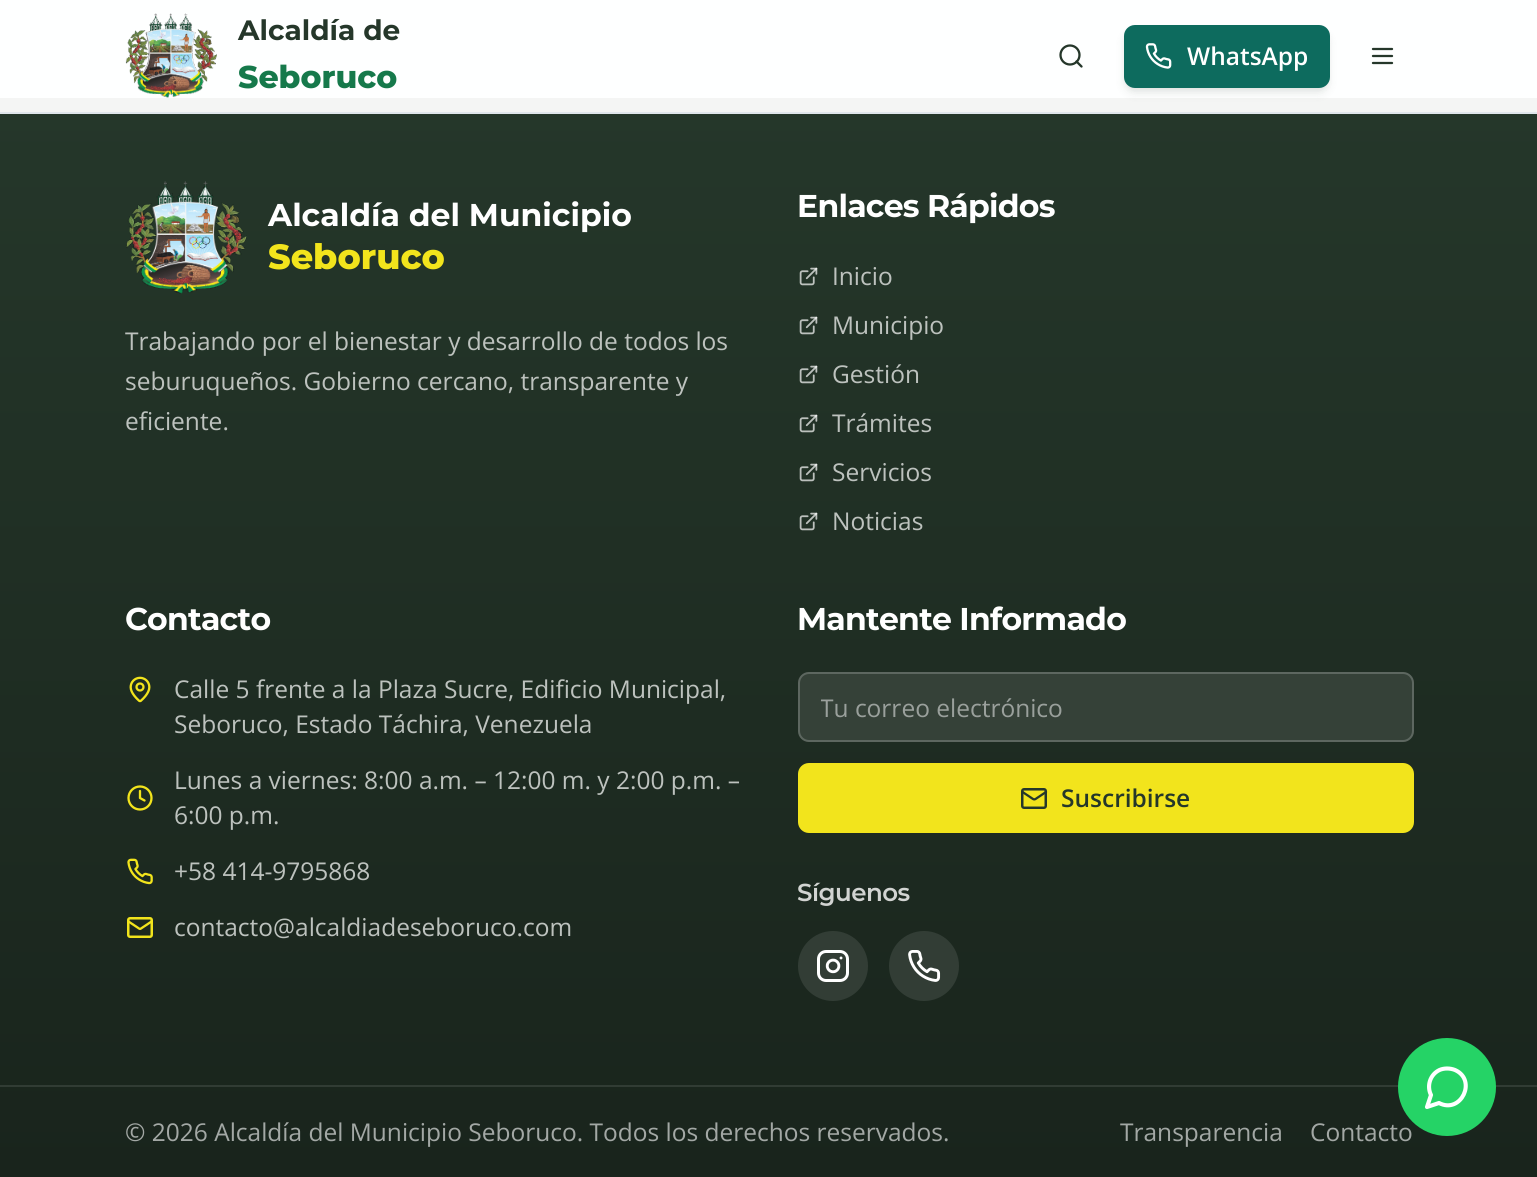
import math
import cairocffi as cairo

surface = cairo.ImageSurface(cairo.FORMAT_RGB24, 1537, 1177)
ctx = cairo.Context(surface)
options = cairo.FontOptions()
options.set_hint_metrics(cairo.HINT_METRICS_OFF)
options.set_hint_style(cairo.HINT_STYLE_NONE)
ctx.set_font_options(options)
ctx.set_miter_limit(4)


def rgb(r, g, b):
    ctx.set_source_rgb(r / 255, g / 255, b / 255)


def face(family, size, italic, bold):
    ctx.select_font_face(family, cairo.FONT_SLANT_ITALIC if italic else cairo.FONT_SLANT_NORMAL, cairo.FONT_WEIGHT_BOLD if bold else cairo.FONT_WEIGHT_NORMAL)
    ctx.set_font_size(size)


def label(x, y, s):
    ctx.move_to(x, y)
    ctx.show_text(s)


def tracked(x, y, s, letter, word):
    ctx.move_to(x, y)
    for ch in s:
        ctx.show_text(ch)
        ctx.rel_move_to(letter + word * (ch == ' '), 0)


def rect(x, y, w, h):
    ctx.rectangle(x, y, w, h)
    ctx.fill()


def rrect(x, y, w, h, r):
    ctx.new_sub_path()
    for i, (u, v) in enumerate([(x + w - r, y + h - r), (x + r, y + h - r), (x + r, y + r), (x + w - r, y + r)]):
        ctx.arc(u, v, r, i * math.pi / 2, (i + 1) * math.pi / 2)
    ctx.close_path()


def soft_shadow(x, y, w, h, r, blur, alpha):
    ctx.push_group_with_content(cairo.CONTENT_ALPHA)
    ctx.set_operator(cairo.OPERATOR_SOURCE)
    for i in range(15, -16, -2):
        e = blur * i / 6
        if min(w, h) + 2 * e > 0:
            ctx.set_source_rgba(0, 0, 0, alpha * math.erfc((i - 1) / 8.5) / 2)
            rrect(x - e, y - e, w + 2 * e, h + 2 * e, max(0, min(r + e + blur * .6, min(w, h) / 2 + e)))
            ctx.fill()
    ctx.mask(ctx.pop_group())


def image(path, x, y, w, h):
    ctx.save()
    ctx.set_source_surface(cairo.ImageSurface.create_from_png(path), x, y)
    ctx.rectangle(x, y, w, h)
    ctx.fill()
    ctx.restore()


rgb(254, 255, 255)
ctx.paint()
rgb(224, 230, 235)
rect(0, 112, 1537, 2)
image('image0.png', 125, 13, 92, 85)
face('Montserrat', 28, 0, 1)
rgb(37, 55, 42)
label(238, 40, 'Alcaldía de')
face('Montserrat ExtraBold', 31.5, 0, 0)
rgb(22, 121, 75)
label(238, 88, 'Seboruco')
ctx.new_path()
ctx.arc(1070, 55, 9.5, 0, 2 * math.pi)
rgb(37, 55, 42)
ctx.set_line_width(2.3)
ctx.stroke()
ctx.new_path()
ctx.move_to(1081.5, 66.5)
ctx.line_to(1076.5, 61.5)
ctx.set_line_cap(cairo.LINE_CAP_ROUND)
ctx.set_line_join(cairo.LINE_JOIN_ROUND)
ctx.stroke()
gradient = cairo.LinearGradient(769, 98, 769, 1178)
gradient.add_color_stop_rgba(0, 0.957, 0.961, 0.957, 1)
gradient.add_color_stop_rgba(1, 0.957, 0.957, 0.957, 1)
ctx.set_source(gradient)
rect(0, 98, 1537, 14)
rgb(37, 55, 42)
soft_shadow(1127, 32, 200, 56, 7, 3.5, 0.1)
soft_shadow(1125, 33, 203, 60, 9, 5, 0.1)
rgb(13, 107, 94)
rrect(1124, 25, 206, 63, 11)
ctx.fill()
image('image1.png', 1145, 43, 27, 26)
face('Open Sans SemiBold', 24.5, 0, 0)
rgb(255, 255, 255)
label(1187, 65, 'WhatsApp')
ctx.new_path()
ctx.move_to(1373, 56)
ctx.line_to(1392, 56)
ctx.move_to(1373, 49)
ctx.line_to(1392, 49)
ctx.move_to(1373, 63)
ctx.line_to(1392, 63)
rgb(37, 55, 42)
ctx.stroke()
gradient = cairo.LinearGradient(769, 98, 769, 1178)
gradient.add_color_stop_rgba(0, 0.145, 0.216, 0.165, 1)
gradient.add_color_stop_rgba(1, 0.098, 0.141, 0.11, 1)
ctx.set_source(gradient)
rect(0, 114, 1537, 1063)
image('image2.png', 126, 181, 121, 113)
face('Montserrat', 31.5, 0, 1)
rgb(255, 255, 255)
label(268, 226, 'Alcaldía del Municipio')
face('Montserrat ExtraBold', 35, 0, 0)
rgb(242, 228, 28)
label(268, 269, 'Seboruco')
face('Open Sans', 24.5, 0, 0)
rgb(189, 194, 190)
label(125, 350, 'Trabajando por el bienestar y desarrollo de todos los')
label(125, 390, 'seburuqueños. Gobierno cercano, transparente y')
label(125, 430, 'eficiente.')
face('Montserrat', 31.5, 0, 1)
rgb(255, 255, 255)
tracked(797, 217, 'Enlaces Rápidos', -0.75, 0)
image('image3.png', 799, 267, 19, 19)
face('Open Sans', 24.5, 0, 0)
rgb(189, 194, 190)
label(832, 285, 'Inicio')
image('image4.png', 799, 316, 19, 19)
label(832, 334, 'Municipio')
image('image5.png', 799, 365, 19, 19)
label(832, 383, 'Gestión')
image('image6.png', 799, 414, 19, 19)
label(832, 432, 'Trámites')
image('image7.png', 799, 463, 19, 19)
label(832, 481, 'Servicios')
image('image8.png', 799, 512, 19, 19)
label(832, 530, 'Noticias')
face('Montserrat', 31.5, 0, 1)
rgb(255, 255, 255)
tracked(125, 630, 'Contacto', -0.75, 0)
image('image9.png', 129, 676, 22, 27)
face('Open Sans', 24.5, 0, 0)
rgb(189, 194, 190)
label(174, 698, 'Calle 5 frente a la Plaza Sucre, Edificio Municipal,')
label(174, 733, 'Seboruco, Estado Táchira, Venezuela')
ctx.new_path()
ctx.arc(140, 798, 11.5, 0, 2 * math.pi)
rgb(242, 228, 28)
ctx.set_line_cap(cairo.LINE_CAP_BUTT)
ctx.set_line_join(cairo.LINE_JOIN_MITER)
ctx.stroke()
ctx.new_path()
ctx.move_to(140, 791)
ctx.line_to(140, 798)
ctx.line_to(144.5, 800.5)
ctx.set_line_cap(cairo.LINE_CAP_ROUND)
ctx.set_line_join(cairo.LINE_JOIN_ROUND)
ctx.stroke()
rgb(189, 194, 190)
label(174, 789, 'Lunes a viernes: 8:00 a.m. – 12:00 m. y 2:00 p.m. –')
label(174, 824, '6:00 p.m.')
image('image10.png', 127, 858, 26, 27)
label(174, 880, '+58 414-9795868')
rrect(128.25, 918.25, 23.5, 18.5, 1.75)
rgb(242, 228, 28)
ctx.set_line_width(2.5)
ctx.set_line_cap(cairo.LINE_CAP_BUTT)
ctx.set_line_join(cairo.LINE_JOIN_MITER)
ctx.stroke()
ctx.new_path()
ctx.move_to(151.5, 921.5)
ctx.line_to(141, 928.5)
ctx.curve_to(140.5, 929, 139.5, 929, 139, 928.5)
ctx.line_to(128.5, 921.5)
ctx.set_line_width(2.3)
ctx.set_line_cap(cairo.LINE_CAP_ROUND)
ctx.set_line_join(cairo.LINE_JOIN_ROUND)
ctx.stroke()
rgb(189, 194, 190)
label(174, 936, 'contacto@alcaldiadeseboruco.com')
face('Montserrat', 31.5, 0, 1)
rgb(255, 255, 255)
tracked(797, 630, 'Mantente Informado', -0.75, 0)
rgb(53, 65, 56)
rrect(798, 672, 616, 70, 11)
ctx.fill()
rrect(799, 673, 614, 68, 10)
ctx.set_source_rgba(1, 1, 1, 0.2)
ctx.set_line_width(2)
ctx.set_line_cap(cairo.LINE_CAP_BUTT)
ctx.set_line_join(cairo.LINE_JOIN_MITER)
ctx.stroke()
ctx.save()
ctx.rectangle(821, 691, 570, 34)
ctx.clip()
face('Open Sans', 24.5, 0, 0)
rgb(154, 160, 156)
label(820, 717, 'Tu correo electrónico')
ctx.restore()
rgb(242, 228, 28)
rrect(798, 763, 616, 70, 11)
ctx.fill()
rrect(1022.25, 789.25, 23.5, 18.5, 1.75)
rgb(37, 55, 42)
ctx.set_line_width(2.5)
ctx.stroke()
ctx.new_path()
ctx.move_to(1046, 792)
ctx.line_to(1035.5, 799)
ctx.curve_to(1034.5, 799.5, 1034, 799.5, 1033, 799)
ctx.line_to(1022.5, 792)
ctx.set_line_width(2.3)
ctx.set_line_cap(cairo.LINE_CAP_ROUND)
ctx.set_line_join(cairo.LINE_JOIN_ROUND)
ctx.stroke()
face('Open Sans SemiBold', 24.5, 0, 0)
label(1061, 807, 'Suscribirse')
face('Montserrat SemiBold', 24.5, 0, 0)
rgb(210, 212, 210)
tracked(797, 901, 'Síguenos', -0.5, 0)
rgb(50, 61, 53)
ctx.new_path()
ctx.arc(833, 966, 35, 0, 2 * math.pi)
ctx.fill()
image('image11.png', 817, 950, 32, 32)
ctx.arc(924, 966, 35, 0, 2 * math.pi)
ctx.fill()
image('image12.png', 908, 950, 33, 32)
rgb(49, 60, 52)
rect(0, 1085, 1537, 2)
face('Open Sans', 24.5, 0, 0)
rgb(163, 168, 165)
label(125, 1141, '© 2026 Alcaldía del Municipio Seboruco. Todos los derechos reservados.')
label(1120, 1141, 'Transparencia')
label(1310, 1141, 'Contacto')
rgb(37, 211, 102)
ctx.new_path()
ctx.arc(1447, 1087, 49, 0, 2 * math.pi)
ctx.fill()
ctx.new_path()
ctx.move_to(1439, 1103)
ctx.curve_to(1461, 1114.5, 1477.5, 1080, 1455, 1070)
ctx.curve_to(1450, 1068, 1444, 1068, 1439.5, 1070)
ctx.curve_to(1430, 1074.5, 1426.5, 1086, 1431, 1095)
ctx.line_to(1427, 1107)
ctx.close_path()
rgb(255, 255, 255)
ctx.set_line_width(4.1)
ctx.stroke()
surface.write_to_png('render.png')
